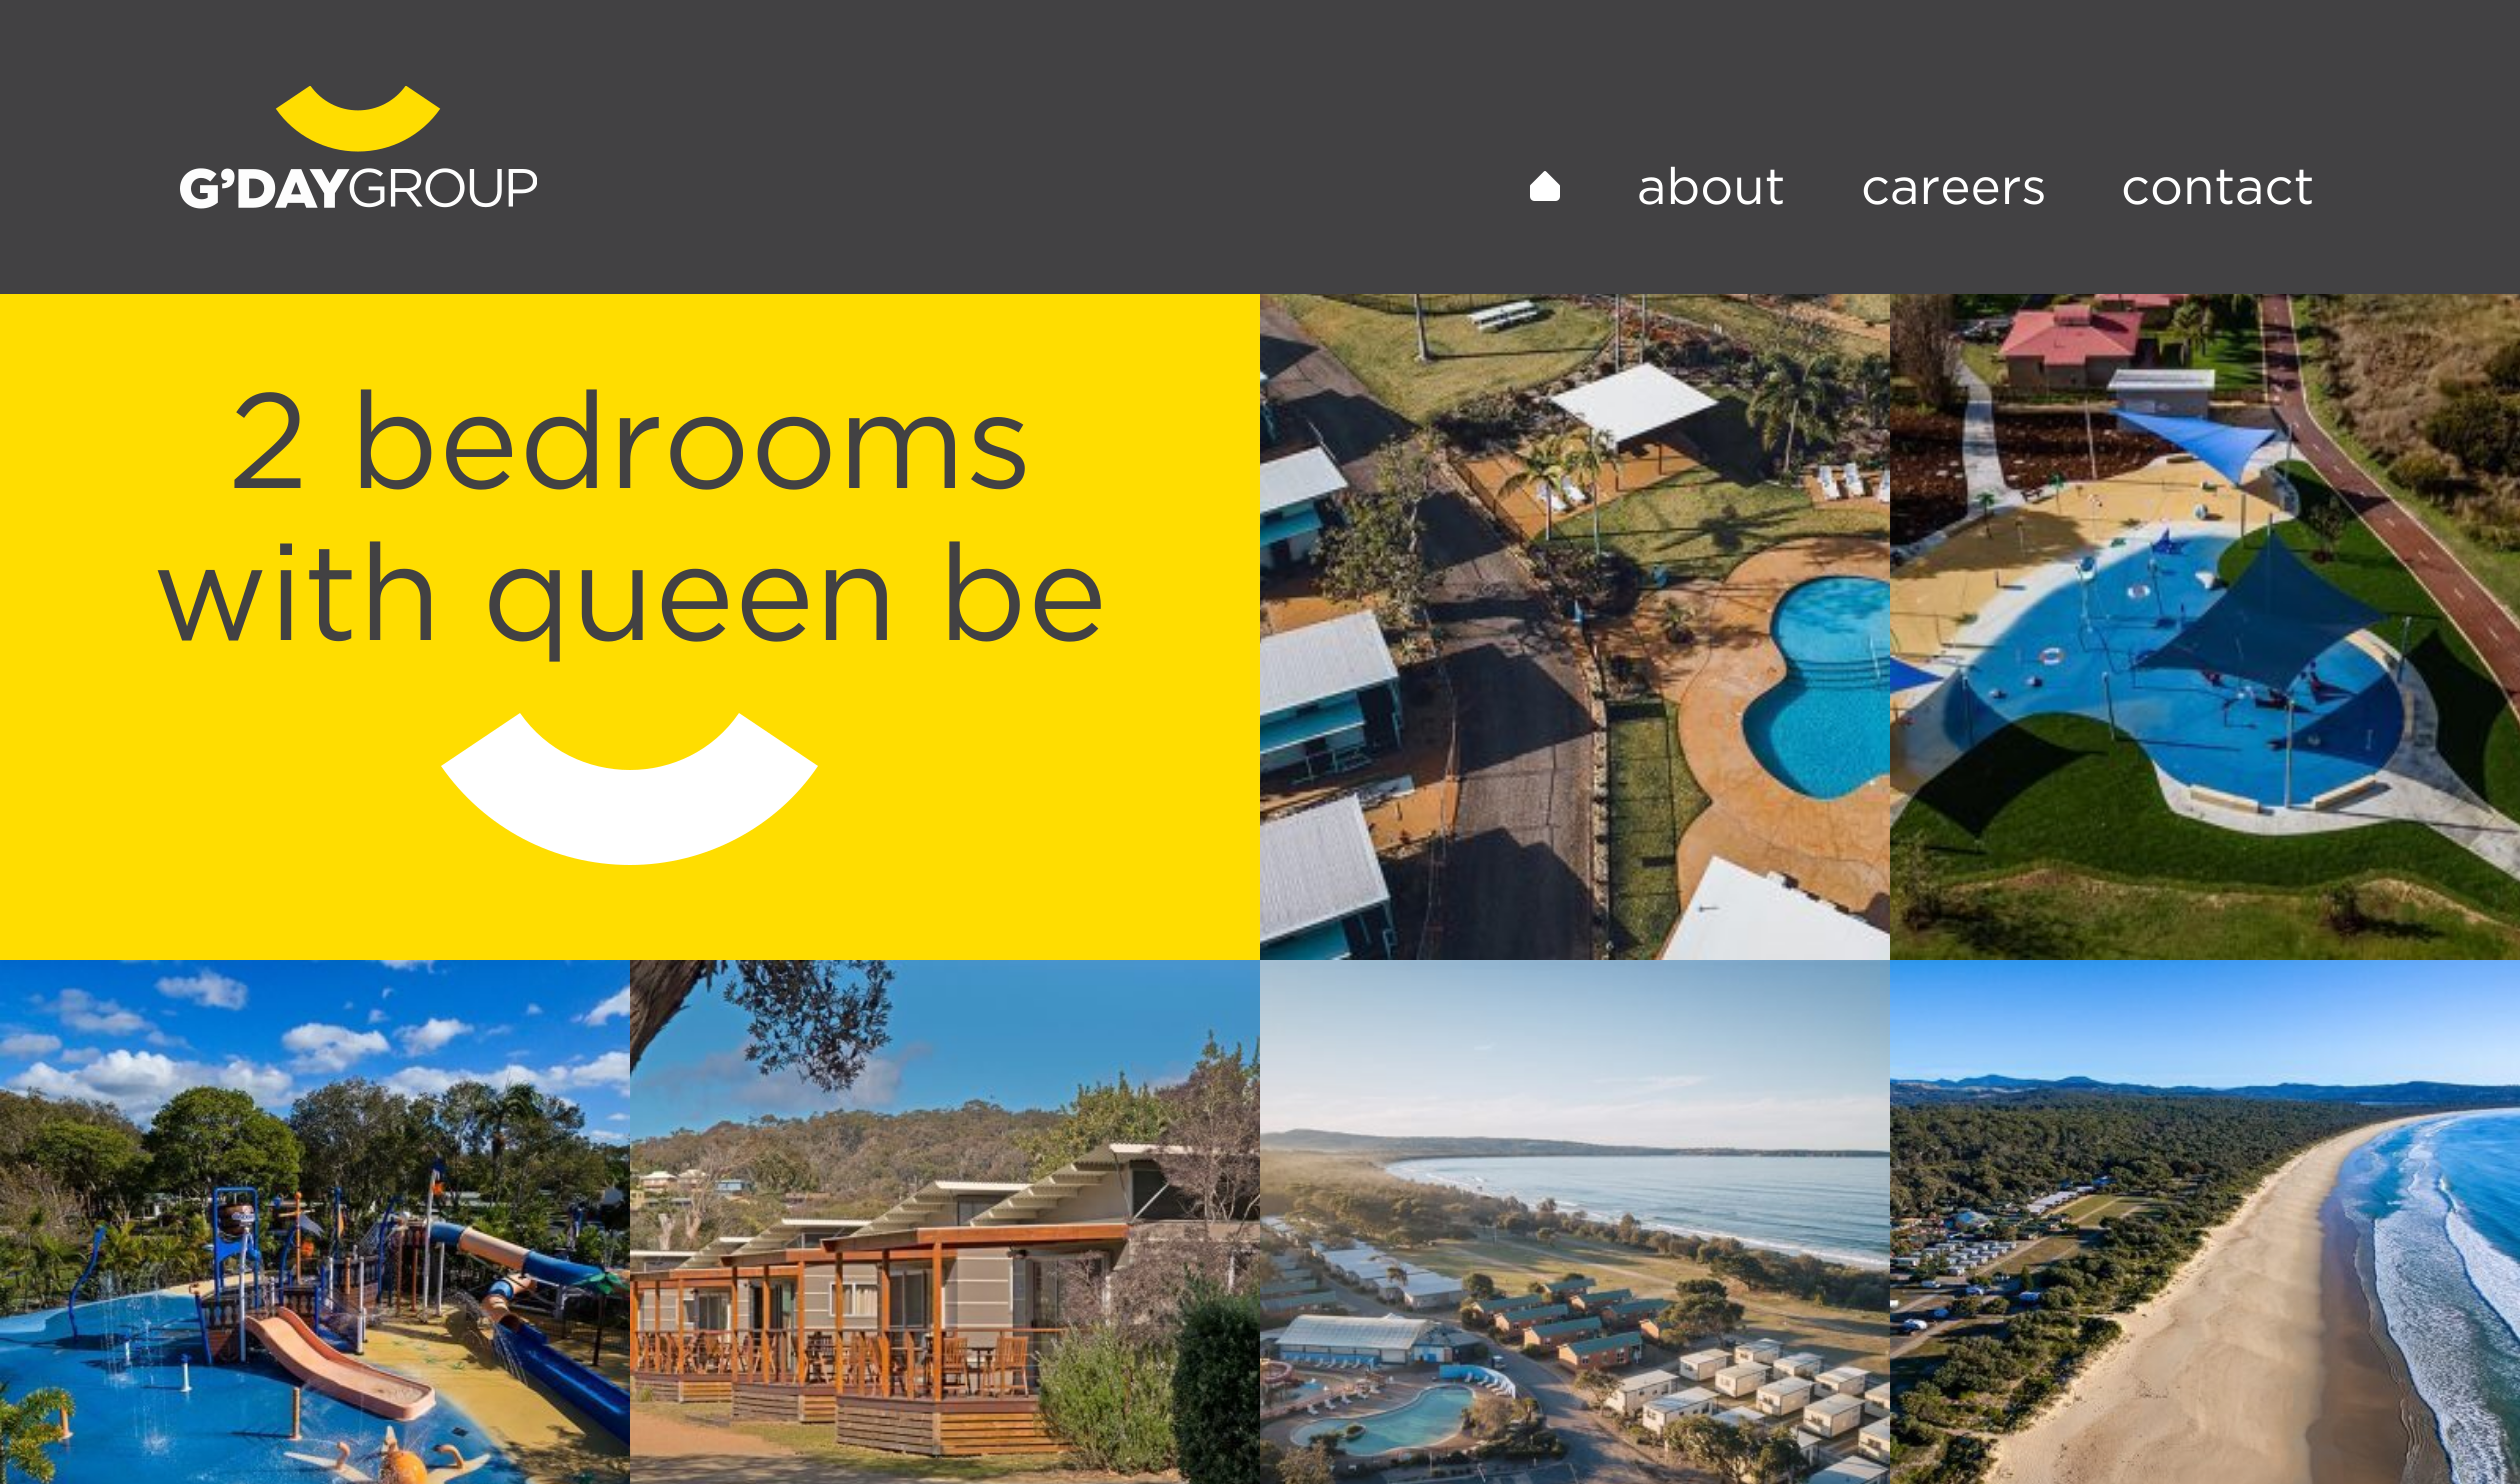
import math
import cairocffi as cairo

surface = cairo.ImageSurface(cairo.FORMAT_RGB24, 2520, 1484)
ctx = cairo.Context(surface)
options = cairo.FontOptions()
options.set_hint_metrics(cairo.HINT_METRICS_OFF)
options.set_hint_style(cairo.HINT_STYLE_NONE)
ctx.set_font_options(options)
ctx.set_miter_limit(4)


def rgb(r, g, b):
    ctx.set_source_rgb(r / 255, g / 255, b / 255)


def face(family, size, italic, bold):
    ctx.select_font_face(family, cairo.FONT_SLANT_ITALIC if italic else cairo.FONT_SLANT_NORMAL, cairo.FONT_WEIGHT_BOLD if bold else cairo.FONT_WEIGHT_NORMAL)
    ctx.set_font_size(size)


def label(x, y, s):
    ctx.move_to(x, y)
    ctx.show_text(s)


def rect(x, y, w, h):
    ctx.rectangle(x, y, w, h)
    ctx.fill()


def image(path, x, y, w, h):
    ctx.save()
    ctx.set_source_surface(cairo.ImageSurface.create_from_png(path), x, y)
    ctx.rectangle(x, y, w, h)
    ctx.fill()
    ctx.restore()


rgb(255, 221, 0)
ctx.paint()
rgb(66, 65, 67)
rect(0, 0, 2520, 294)
image('image0.png', 180, 86, 357, 123)
image('image1.png', 1530, 171, 30, 30)
face('Gotham', 51, 0, 0)
rgb(255, 255, 255)
label(1637, 204, 'about')
label(1861, 204, 'careers')
label(2121, 204, 'contact')
face('Gotham', 135, 0, 0)
rgb(66, 65, 67)
label(228, 488, '2 bedrooms')
label(152, 640, 'with queen be')
rgb(255, 255, 255)
ctx.set_fill_rule(cairo.FILL_RULE_EVEN_ODD)
ctx.new_path()
ctx.move_to(630, 865)
ctx.curve_to(554, 865, 484, 828, 441, 766)
ctx.line_to(520, 713)
ctx.curve_to(573, 789, 687, 789, 739, 713)
ctx.line_to(818, 766)
ctx.curve_to(776, 828, 705, 865, 630, 865)
ctx.fill()
image('image2.png', 1260, 294, 630, 666)
image('image3.png', 1890, 294, 630, 666)
image('image4.png', 0, 960, 630, 524)
image('image5.png', 630, 960, 630, 524)
image('image6.png', 1260, 960, 630, 524)
image('image7.png', 1890, 960, 630, 524)
surface.write_to_png('render.png')
